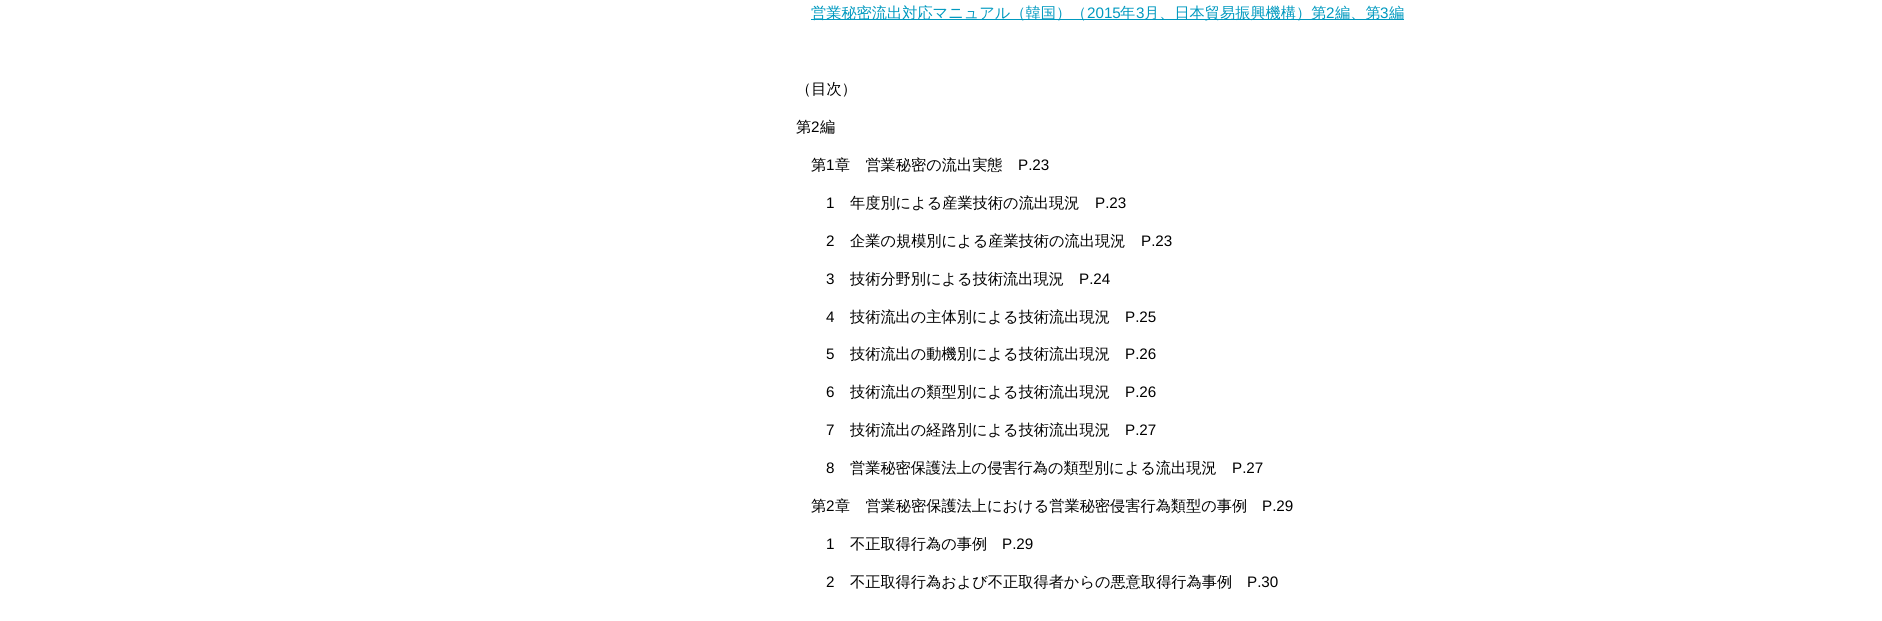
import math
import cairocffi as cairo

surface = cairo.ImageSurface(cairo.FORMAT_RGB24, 1882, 621)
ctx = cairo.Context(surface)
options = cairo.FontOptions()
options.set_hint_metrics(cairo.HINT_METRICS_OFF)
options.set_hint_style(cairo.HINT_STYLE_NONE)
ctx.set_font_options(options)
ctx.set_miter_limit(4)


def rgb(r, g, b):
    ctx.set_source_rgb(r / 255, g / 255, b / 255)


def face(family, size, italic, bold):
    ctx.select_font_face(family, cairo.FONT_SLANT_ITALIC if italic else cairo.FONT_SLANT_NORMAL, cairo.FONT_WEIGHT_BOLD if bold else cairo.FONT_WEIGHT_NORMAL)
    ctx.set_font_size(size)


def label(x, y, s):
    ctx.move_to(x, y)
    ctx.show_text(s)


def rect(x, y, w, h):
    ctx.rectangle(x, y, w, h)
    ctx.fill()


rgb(255, 255, 255)
ctx.paint()
rgb(0, 153, 191)
rect(811, 19, 593, 1)
face('WenQuanYi Zen Hei Medium', 15.2, 0, 0)
label(811, 18, '営業秘密流出対応マニュアル（韓国）（')
face('Liberation Sans', 15.2, 0, 0)
label(1087, 18, '2015')
face('WenQuanYi Zen Hei Medium', 15.2, 0, 0)
label(1120, 18, '年')
face('Liberation Sans', 15.2, 0, 0)
label(1136, 18, '3')
face('WenQuanYi Zen Hei Medium', 15.2, 0, 0)
label(1144, 18, '月、日本貿易振興機構）第')
face('Liberation Sans', 15.2, 0, 0)
label(1326, 18, '2')
face('WenQuanYi Zen Hei Medium', 15.2, 0, 0)
label(1335, 18, '編、第')
face('Liberation Sans', 15.2, 0, 0)
label(1380, 18, '3')
face('WenQuanYi Zen Hei Medium', 15.2, 0, 0)
label(1389, 18, '編')
rgb(0, 0, 0)
label(796, 94, '（目次）')
label(796, 132, '第')
face('Liberation Sans', 15.2, 0, 0)
label(811, 132, '2')
face('WenQuanYi Zen Hei Medium', 15.2, 0, 0)
label(820, 132, '編')
label(811, 170, '第')
face('Liberation Sans', 15.2, 0, 0)
label(826, 170, '1')
face('WenQuanYi Zen Hei Medium', 15.2, 0, 0)
label(835, 170, '章　営業秘密の流出実態')
face('Liberation Sans', 15.2, 0, 0)
label(1018, 170, 'P.23')
label(826, 208, '1')
face('WenQuanYi Zen Hei Medium', 15.2, 0, 0)
label(850, 208, '年度別による産業技術の流出現況')
face('Liberation Sans', 15.2, 0, 0)
label(1095, 208, 'P.23')
label(826, 246, '2')
face('WenQuanYi Zen Hei Medium', 15.2, 0, 0)
label(850, 246, '企業の規模別による産業技術の流出現況')
face('Liberation Sans', 15.2, 0, 0)
label(1141, 246, 'P.23')
label(826, 284, '3')
face('WenQuanYi Zen Hei Medium', 15.2, 0, 0)
label(850, 284, '技術分野別による技術流出現況')
face('Liberation Sans', 15.2, 0, 0)
label(1079, 284, 'P.24')
label(826, 322, '4')
face('WenQuanYi Zen Hei Medium', 15.2, 0, 0)
label(850, 322, '技術流出の主体別による技術流出現況')
face('Liberation Sans', 15.2, 0, 0)
label(1125, 322, 'P.25')
label(826, 359, '5')
face('WenQuanYi Zen Hei Medium', 15.2, 0, 0)
label(850, 359, '技術流出の動機別による技術流出現況')
face('Liberation Sans', 15.2, 0, 0)
label(1125, 359, 'P.26')
label(826, 397, '6')
face('WenQuanYi Zen Hei Medium', 15.2, 0, 0)
label(850, 397, '技術流出の類型別による技術流出現況')
face('Liberation Sans', 15.2, 0, 0)
label(1125, 397, 'P.26')
label(826, 435, '7')
face('WenQuanYi Zen Hei Medium', 15.2, 0, 0)
label(850, 435, '技術流出の経路別による技術流出現況')
face('Liberation Sans', 15.2, 0, 0)
label(1125, 435, 'P.27')
label(826, 473, '8')
face('WenQuanYi Zen Hei Medium', 15.2, 0, 0)
label(850, 473, '営業秘密保護法上の侵害行為の類型別による流出現況')
face('Liberation Sans', 15.2, 0, 0)
label(1232, 473, 'P.27')
face('WenQuanYi Zen Hei Medium', 15.2, 0, 0)
label(811, 511, '第')
face('Liberation Sans', 15.2, 0, 0)
label(826, 511, '2')
face('WenQuanYi Zen Hei Medium', 15.2, 0, 0)
label(835, 511, '章　営業秘密保護法上における営業秘密侵害行為類型の事例')
face('Liberation Sans', 15.2, 0, 0)
label(1262, 511, 'P.29')
label(826, 549, '1')
face('WenQuanYi Zen Hei Medium', 15.2, 0, 0)
label(850, 549, '不正取得行為の事例')
face('Liberation Sans', 15.2, 0, 0)
label(1002, 549, 'P.29')
label(826, 587, '2')
face('WenQuanYi Zen Hei Medium', 15.2, 0, 0)
label(850, 587, '不正取得行為および不正取得者からの悪意取得行為事例')
face('Liberation Sans', 15.2, 0, 0)
label(1247, 587, 'P.30')
surface.write_to_png('render.png')
